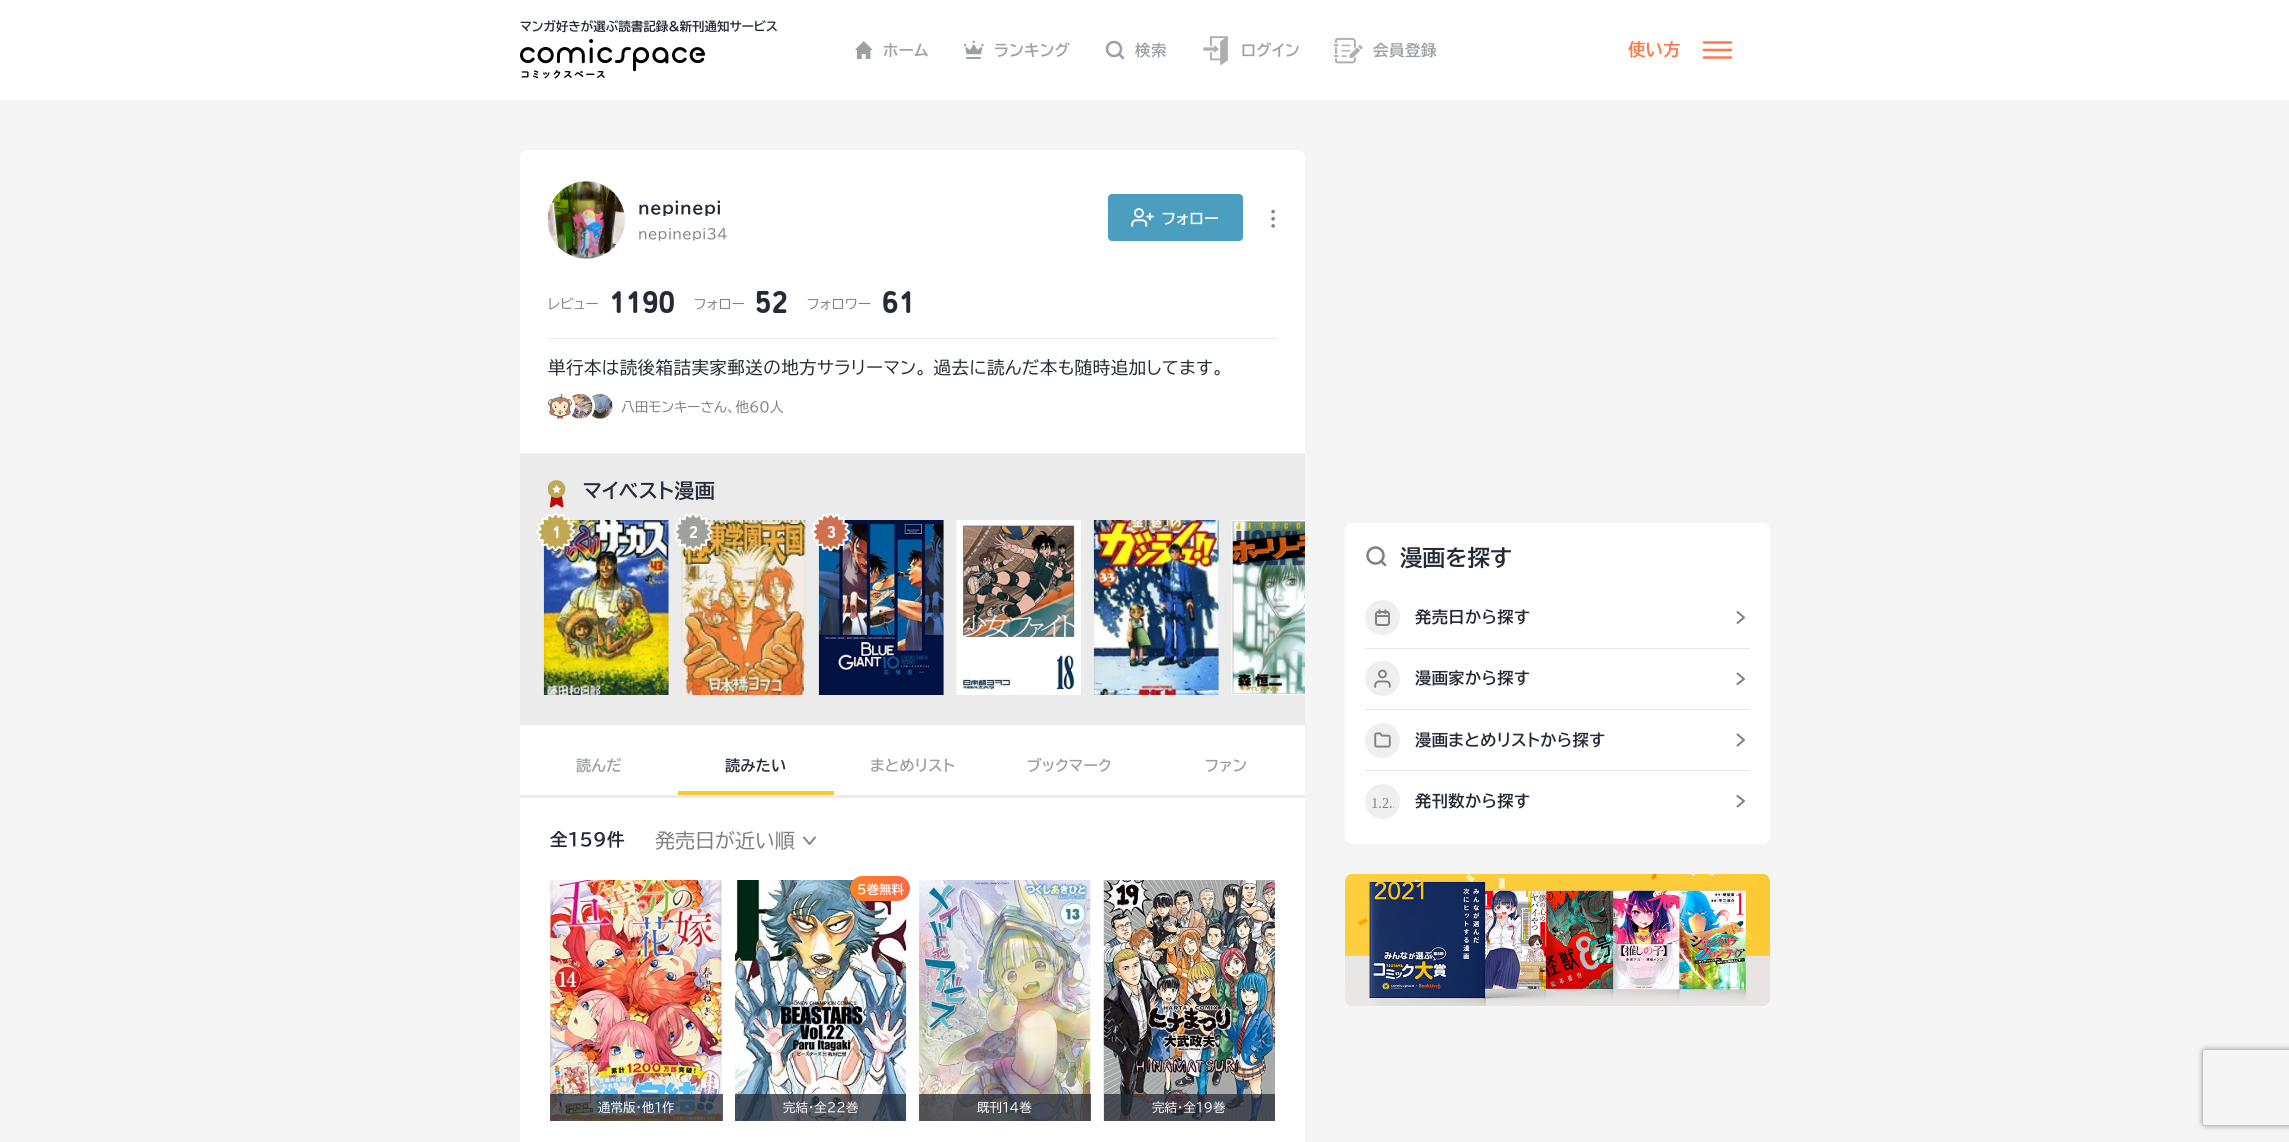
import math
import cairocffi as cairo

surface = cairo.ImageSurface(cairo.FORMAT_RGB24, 2289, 1142)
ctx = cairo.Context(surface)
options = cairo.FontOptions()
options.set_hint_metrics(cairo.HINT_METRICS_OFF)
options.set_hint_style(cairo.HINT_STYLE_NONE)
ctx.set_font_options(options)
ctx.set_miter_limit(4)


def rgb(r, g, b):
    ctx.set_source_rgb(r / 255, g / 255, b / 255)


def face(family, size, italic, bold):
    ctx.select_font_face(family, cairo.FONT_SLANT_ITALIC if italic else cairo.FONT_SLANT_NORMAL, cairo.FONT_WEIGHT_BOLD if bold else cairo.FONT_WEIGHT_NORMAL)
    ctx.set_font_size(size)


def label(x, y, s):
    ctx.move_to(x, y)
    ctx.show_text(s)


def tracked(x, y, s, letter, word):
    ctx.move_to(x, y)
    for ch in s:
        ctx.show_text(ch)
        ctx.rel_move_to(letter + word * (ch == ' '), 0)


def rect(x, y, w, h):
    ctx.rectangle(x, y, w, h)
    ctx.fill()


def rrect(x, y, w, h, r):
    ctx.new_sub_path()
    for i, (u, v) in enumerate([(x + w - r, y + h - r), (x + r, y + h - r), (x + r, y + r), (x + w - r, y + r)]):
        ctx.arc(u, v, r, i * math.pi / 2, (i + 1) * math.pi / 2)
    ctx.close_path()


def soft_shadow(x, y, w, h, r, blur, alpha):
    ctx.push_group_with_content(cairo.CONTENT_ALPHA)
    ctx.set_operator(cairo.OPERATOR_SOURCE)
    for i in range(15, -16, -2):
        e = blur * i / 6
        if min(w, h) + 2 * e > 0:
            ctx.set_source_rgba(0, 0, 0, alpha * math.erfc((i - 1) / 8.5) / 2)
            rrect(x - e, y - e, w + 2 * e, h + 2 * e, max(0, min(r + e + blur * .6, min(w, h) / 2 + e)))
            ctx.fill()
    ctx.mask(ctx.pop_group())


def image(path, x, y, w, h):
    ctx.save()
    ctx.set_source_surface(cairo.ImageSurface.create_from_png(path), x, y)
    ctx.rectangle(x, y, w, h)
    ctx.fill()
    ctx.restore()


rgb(245, 245, 245)
ctx.paint()
rgb(255, 255, 255)
rect(0, 0, 2289, 100)
face('BIZ UDPGothic', 12.5, 0, 1)
rgb(36, 42, 54)
label(520, 31, 'マンガ好きが選ぶ読書記録&新刊通知サービス')
image('image0.png', 520, 39, 185, 40)
image('image1.png', 855, 41, 18, 18)
face('BIZ UDPGothic', 15.5, 0, 1)
rgb(156, 159, 165)
tracked(883, 56, 'ホーム', 0.5, 0)
image('image2.png', 964, 40, 20, 19)
tracked(994, 56, 'ランキング', 0.5, 0)
ctx.new_path()
ctx.arc(1114, 49, 7, 0, 2 * math.pi)
ctx.set_line_width(2.5)
ctx.stroke()
ctx.new_path()
ctx.move_to(1123, 58)
ctx.line_to(1119, 54)
ctx.set_line_cap(cairo.LINE_CAP_ROUND)
ctx.set_line_join(cairo.LINE_JOIN_ROUND)
ctx.stroke()
tracked(1135, 56, '検索', 0.5, 0)
image('image3.png', 1203, 36, 25, 29)
tracked(1241, 56, 'ログイン', 0.5, 0)
image('image4.png', 1334, 37, 29, 27)
tracked(1373, 56, '会員登録', 0.5, 0)
face('BIZ UDPGothic', 17.5, 0, 1)
rgb(252, 121, 73)
label(1628, 56, '使い方')
ctx.new_path()
ctx.move_to(1704, 50)
ctx.line_to(1731, 50)
ctx.move_to(1704, 42.5)
ctx.line_to(1731, 42.5)
ctx.move_to(1704, 57.5)
ctx.line_to(1731, 57.5)
ctx.stroke()
rgb(255, 255, 255)
ctx.new_path()
ctx.move_to(528, 150)
ctx.line_to(1297, 150)
ctx.curve_to(1301.5, 150, 1305, 153.5, 1305, 158)
ctx.line_to(1305, 453)
ctx.line_to(520, 453)
ctx.line_to(520, 158)
ctx.curve_to(520, 153.5, 523.5, 150, 528, 150)
ctx.close_path()
ctx.fill()
rgb(235, 235, 235)
rrect(548, 181, 77, 78, 38.5)
ctx.fill()
image('image5.png', 547, 181, 78, 78)
face('BIZ UDPGothic', 16.25, 0, 1)
rgb(36, 42, 54)
tracked(638, 214, 'nepinepi', 0.5, 0)
face('BIZ UDPGothic', 13.75, 0, 0)
rgb(128, 128, 128)
tracked(638, 239, 'nepinepi34', 0.25, 0)
ctx.new_path()
ctx.arc(1273.1, 218.8, 1, 0, 2 * math.pi)
ctx.set_line_width(1.7)
ctx.set_line_cap(cairo.LINE_CAP_BUTT)
ctx.set_line_join(cairo.LINE_JOIN_MITER)
ctx.stroke()
ctx.arc(1273.1, 211.6, 1, 0, 2 * math.pi)
ctx.stroke()
ctx.arc(1273.1, 225.9, 1, 0, 2 * math.pi)
ctx.stroke()
rgb(75, 158, 191)
rrect(1108.5, 194.5, 134, 46, 3.5)
ctx.fill_preserve()
ctx.set_line_width(1)
ctx.stroke()
image('image6.png', 1131, 208, 23, 19)
face('BIZ UDPGothic', 15, 0, 1)
rgb(255, 255, 255)
tracked(1162, 224, 'フォロー', 0.4, 0)
face('BIZ UDPGothic', 13.75, 0, 0)
rgb(128, 128, 128)
tracked(548, 309, 'レビュー', 0.25, 0)
face('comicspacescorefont', 27.5, 0, 1)
rgb(36, 42, 54)
label(609, 313, '1190')
face('BIZ UDPGothic', 13.75, 0, 0)
rgb(128, 128, 128)
tracked(694, 309, 'フォロー', 0.25, 0)
face('comicspacescorefont', 27.5, 0, 1)
rgb(36, 42, 54)
label(755, 313, '52')
face('BIZ UDPGothic', 13.75, 0, 0)
rgb(128, 128, 128)
tracked(807, 309, 'フォロワー', 0.25, 0)
face('comicspacescorefont', 27.5, 0, 1)
rgb(36, 42, 54)
label(882, 313, '61')
rgb(235, 235, 235)
rect(548, 338, 730, 1)
face('BIZ UDPGothic', 17.5, 0, 0)
rgb(36, 42, 54)
tracked(548, 374, '単行本は読後箱詰実家郵送の地方サラリーマン。 過去に読んだ本も随時追加してます。', 0.45, 0)
image('image9.png', 589, 393, 24, 26)
ctx.arc(580, 406, 13.5, 0, 2 * math.pi)
rgb(255, 255, 255)
ctx.set_line_width(3)
ctx.stroke()
image('image8.png', 569, 393, 24, 26)
ctx.arc(560, 406, 13.5, 0, 2 * math.pi)
ctx.stroke()
image('image7.png', 548, 394, 24, 25)
face('BIZ UDPGothic', 13.75, 0, 0)
rgb(128, 128, 128)
label(621, 412, '八田モンキーさん、他60人')
rgb(235, 235, 235)
rect(520, 453, 785, 272)
image('image10.png', 548, 480, 18, 28)
face('BIZ UDPGothic', 20, 0, 1)
rgb(36, 42, 54)
tracked(583, 498, 'マイベスト漫画', 0.5, 0)
image('image11.png', 543, 520, 126, 175)
image('image12.png', 536, 513, 39, 38)
face('comicspacescorefont', 15, 0, 1)
rgb(255, 255, 255)
label(552, 538, '1')
image('image13.png', 681, 520, 125, 175)
image('image14.png', 674, 513, 39, 38)
label(689, 538, '2')
image('image15.png', 818, 520, 126, 175)
image('image16.png', 811, 513, 39, 38)
label(827, 538, '3')
image('image17.png', 956, 520, 125, 175)
image('image18.png', 1093, 520, 126, 175)
image('image19.png', 1231, 520, 74, 175)
rect(520, 725, 785, 70)
rgb(235, 235, 235)
rect(520, 795, 785, 3)
face('BIZ UDPGothic', 15, 0, 1)
rgb(156, 159, 165)
tracked(576, 771, '読んだ', 0.4, 0)
rgb(36, 42, 54)
tracked(725, 771, '読みたい', 0.4, 0)
rgb(251, 200, 50)
rect(678, 791, 156, 4)
rgb(156, 159, 165)
tracked(870, 771, 'まとめリスト', 0.4, 0)
tracked(1027, 771, 'ブックマーク', 0.4, 0)
tracked(1205, 771, 'ファン', 0.4, 0)
rgb(255, 255, 255)
rect(520, 798, 785, 344)
face('BIZ UDPGothic', 17.5, 0, 1)
rgb(36, 42, 54)
tracked(550, 846, '全159件', 0.45, 0)
ctx.new_path()
ctx.move_to(804, 837.5)
ctx.line_to(809.5, 844)
ctx.line_to(815, 837.5)
rgb(128, 128, 128)
ctx.set_line_width(1.9)
ctx.set_line_cap(cairo.LINE_CAP_ROUND)
ctx.set_line_join(cairo.LINE_JOIN_ROUND)
ctx.stroke()
face('BIZ UDPGothic', 20, 0, 0)
label(655, 848, '発売日が近い順')
image('image20.png', 550, 880, 172, 241)
ctx.set_source_rgba(0.141, 0.165, 0.212, 0.75)
rect(550, 1094, 173, 27)
face('BIZ UDPGothic', 12.5, 0, 0)
rgb(255, 255, 255)
label(598, 1112, '通常版・他1作')
image('image21.png', 735, 880, 172, 241)
gradient = cairo.LinearGradient(850, 889, 910, 889)
gradient.add_color_stop_rgba(0, 0.984, 0.514, 0.145, 1)
gradient.add_color_stop_rgba(1, 0.984, 0.404, 0.294, 1)
ctx.set_source(gradient)
rrect(850, 876, 60, 25, 12.5)
ctx.fill()
face('BIZ UDPGothic', 12.5, 0, 1)
rgb(255, 255, 255)
label(857, 894, '5巻無料')
ctx.set_source_rgba(0.141, 0.165, 0.212, 0.75)
rect(735, 1094, 171, 27)
face('BIZ UDPGothic', 12.5, 0, 0)
rgb(255, 255, 255)
label(783, 1112, '完結・全22巻')
image('image22.png', 919, 880, 172, 241)
ctx.set_source_rgba(0.141, 0.165, 0.212, 0.75)
rect(919, 1094, 172, 27)
rgb(255, 255, 255)
label(977, 1112, '既刊14巻')
image('image23.png', 1103, 880, 172, 241)
ctx.set_source_rgba(0.141, 0.165, 0.212, 0.75)
rect(1104, 1094, 171, 27)
rgb(255, 255, 255)
label(1152, 1112, '完結・全19巻')
rrect(1345, 523, 425, 321, 8)
ctx.fill()
ctx.arc(1375.5, 555.5, 8, 0, 2 * math.pi)
rgb(128, 128, 128)
ctx.set_line_width(2.5)
ctx.set_line_cap(cairo.LINE_CAP_BUTT)
ctx.set_line_join(cairo.LINE_JOIN_MITER)
ctx.stroke()
ctx.new_path()
ctx.move_to(1385, 565)
ctx.line_to(1381, 561)
ctx.set_line_cap(cairo.LINE_CAP_ROUND)
ctx.set_line_join(cairo.LINE_JOIN_ROUND)
ctx.stroke()
face('BIZ UDPGothic', 22.5, 0, 1)
rgb(36, 42, 54)
label(1400, 566, '漫画を探す')
rgb(239, 239, 239)
ctx.new_path()
ctx.arc(1382.5, 617.5, 17.5, 0, 2 * math.pi)
ctx.fill()
image('image24.png', 1375, 609, 15, 17)
face('BIZ UDPGothic', 16.25, 0, 1)
rgb(36, 42, 54)
tracked(1415, 623, '発売日から探す', 0.4, 0)
ctx.new_path()
ctx.move_to(1737.5, 623)
ctx.line_to(1744, 617.5)
ctx.line_to(1737.5, 612)
rgb(128, 128, 128)
ctx.set_line_width(2)
ctx.stroke()
rgb(229, 229, 229)
rect(1365, 648, 385, 1)
rgb(239, 239, 239)
ctx.arc(1382.5, 678.5, 17.5, 0, 2 * math.pi)
ctx.fill()
image('image25.png', 1374, 669, 17, 19)
rgb(36, 42, 54)
tracked(1415, 684, '漫画家から探す', 0.4, 0)
ctx.new_path()
ctx.move_to(1737.5, 684)
ctx.line_to(1744, 679)
ctx.line_to(1737.5, 673.5)
rgb(128, 128, 128)
ctx.stroke()
rgb(229, 229, 229)
rect(1365, 709, 385, 1)
rgb(239, 239, 239)
ctx.arc(1382.5, 740.5, 17.5, 0, 2 * math.pi)
ctx.fill()
image('image26.png', 1374, 732, 17, 16)
rgb(36, 42, 54)
tracked(1415, 746, '漫画まとめリストから探す', 0.4, 0)
ctx.new_path()
ctx.move_to(1737.5, 745.5)
ctx.line_to(1744, 740)
ctx.line_to(1737.5, 734.5)
rgb(128, 128, 128)
ctx.stroke()
rgb(229, 229, 229)
rect(1365, 770, 385, 1)
rgb(239, 239, 239)
ctx.arc(1382.5, 801.5, 17.5, 0, 2 * math.pi)
ctx.fill()
image('image27.png', 1372, 798, 22, 10)
rgb(36, 42, 54)
tracked(1415, 807, '発刊数から探す', 0.4, 0)
ctx.new_path()
ctx.move_to(1737.5, 806.5)
ctx.line_to(1744, 801)
ctx.line_to(1737.5, 796)
rgb(128, 128, 128)
ctx.stroke()
image('image28.png', 1345, 873, 425, 133)
ctx.save()
ctx.set_fill_rule(cairo.FILL_RULE_EVEN_ODD)
ctx.new_path()
ctx.move_to(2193, 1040)
ctx.line_to(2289, 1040)
ctx.line_to(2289, 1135)
ctx.line_to(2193, 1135)
ctx.close_path()
ctx.move_to(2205.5, 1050)
ctx.line_to(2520.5, 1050)
ctx.curve_to(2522, 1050, 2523, 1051, 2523, 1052.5)
ctx.line_to(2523, 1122.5)
ctx.curve_to(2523, 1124, 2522, 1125, 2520.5, 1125)
ctx.line_to(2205.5, 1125)
ctx.curve_to(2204, 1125, 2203, 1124, 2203, 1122.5)
ctx.line_to(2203, 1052.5)
ctx.curve_to(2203, 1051, 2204, 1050, 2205.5, 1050)
ctx.close_path()
ctx.clip()
rgb(128, 128, 128)
soft_shadow(2203, 1050, 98, 75, 2.5, 3, 1)
ctx.restore()
surface.write_to_png('render.png')
